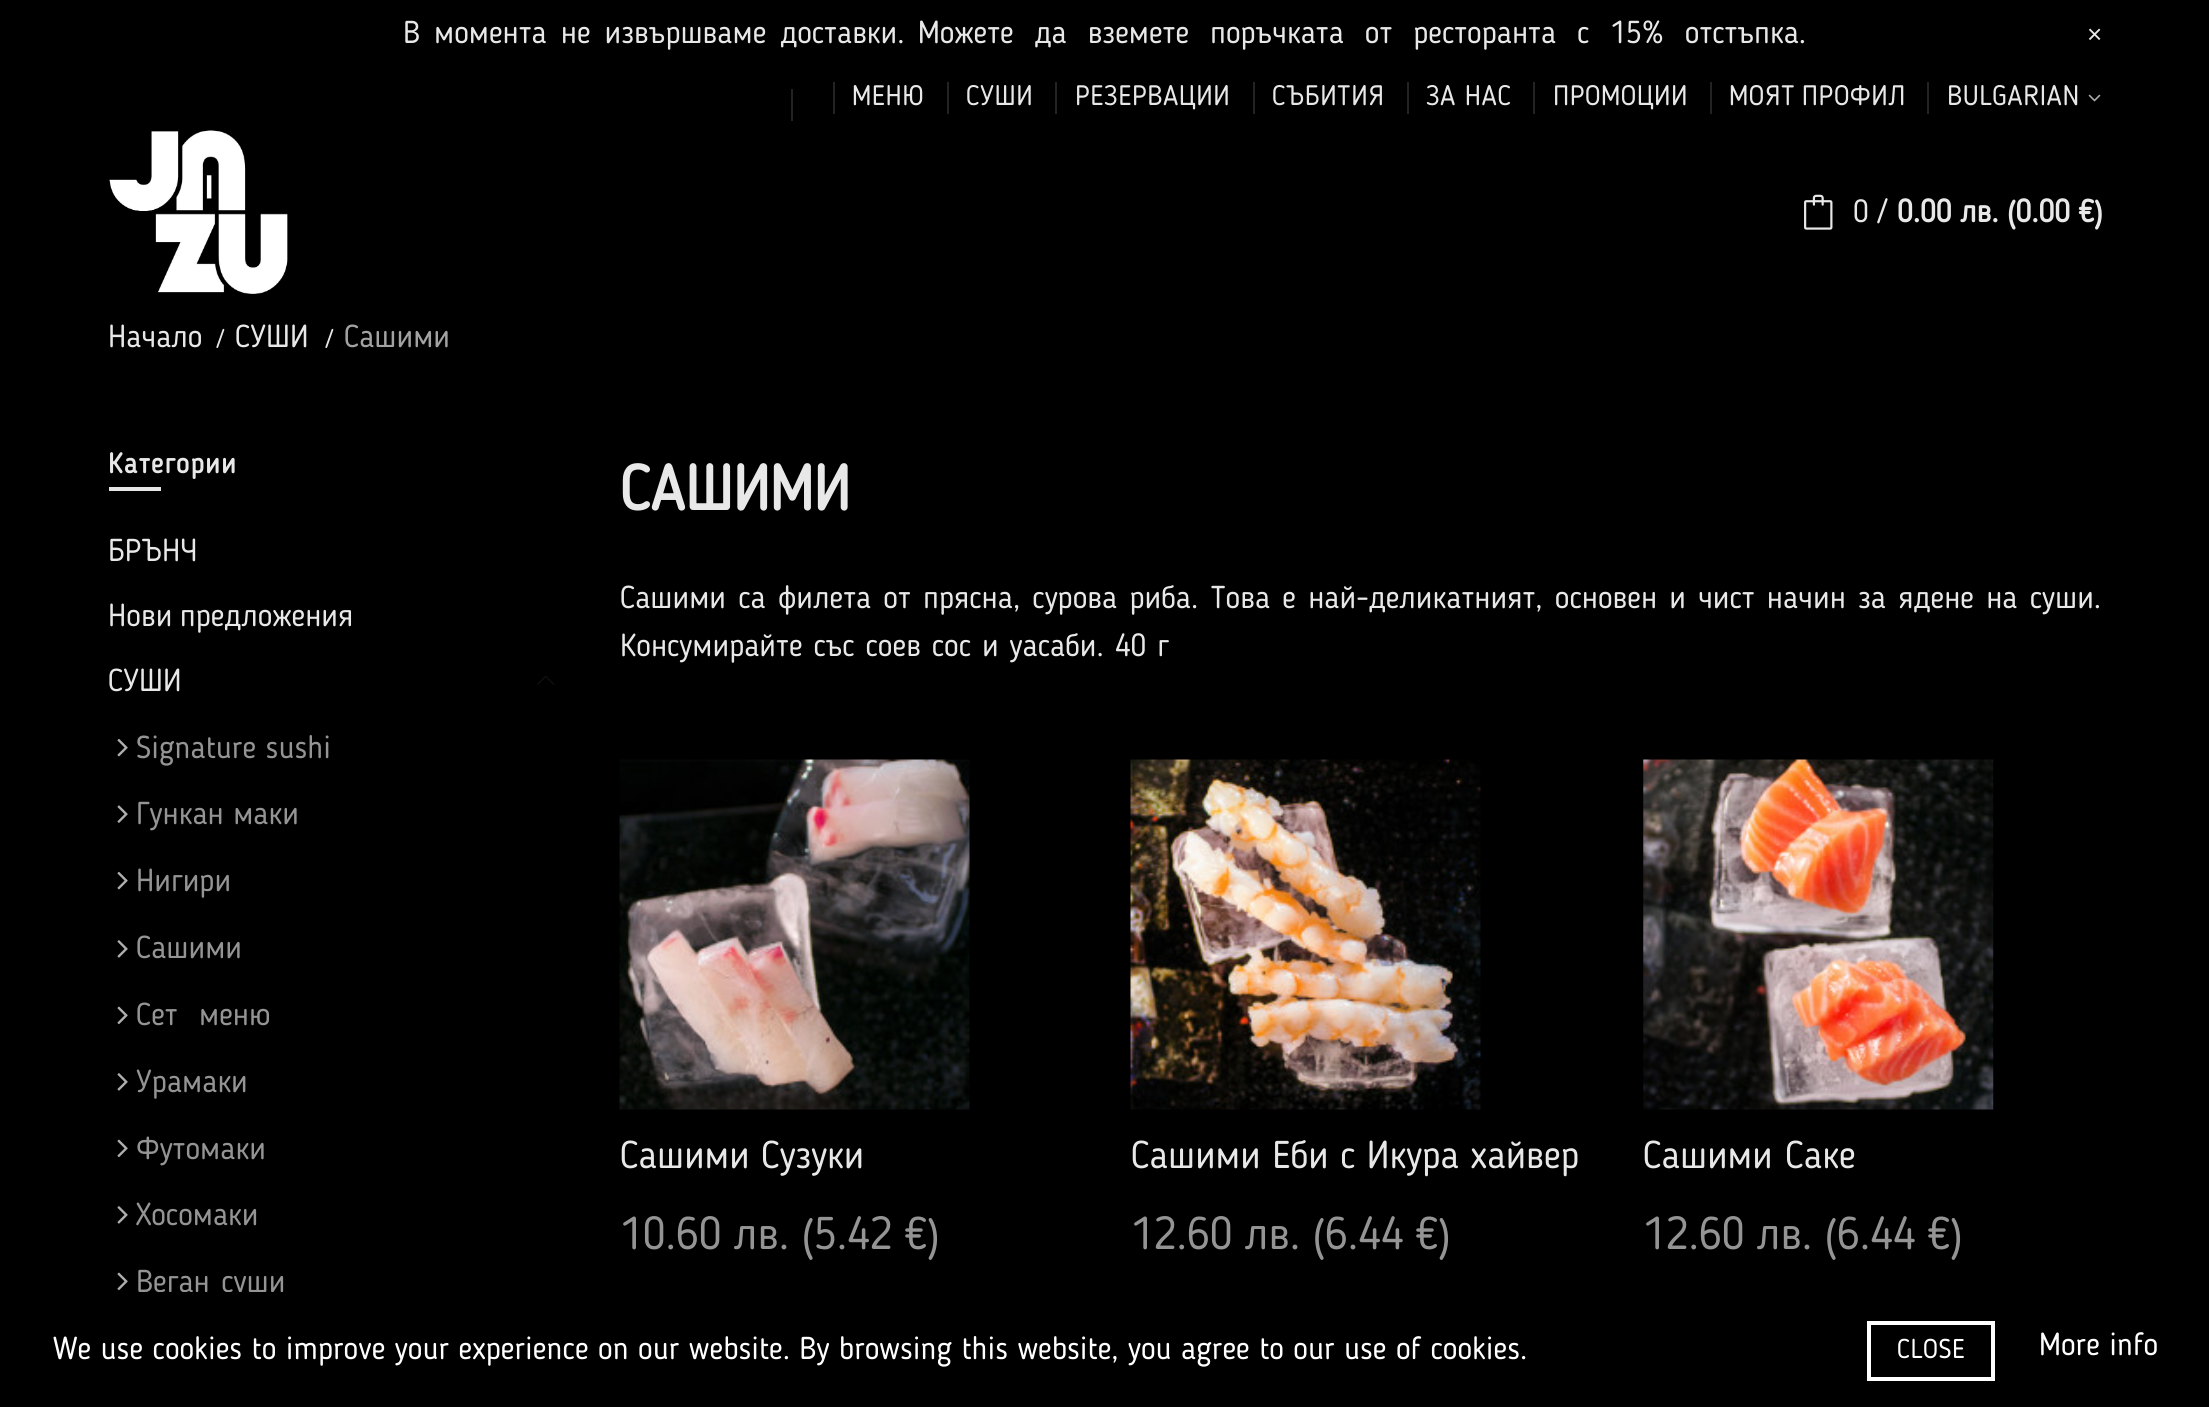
import math
import cairocffi as cairo

surface = cairo.ImageSurface(cairo.FORMAT_RGB24, 2209, 1407)
ctx = cairo.Context(surface)
options = cairo.FontOptions()
options.set_hint_metrics(cairo.HINT_METRICS_OFF)
options.set_hint_style(cairo.HINT_STYLE_NONE)
ctx.set_font_options(options)
ctx.set_miter_limit(4)


def rgb(r, g, b):
    ctx.set_source_rgb(r / 255, g / 255, b / 255)


def face(family, size, italic, bold):
    ctx.select_font_face(family, cairo.FONT_SLANT_ITALIC if italic else cairo.FONT_SLANT_NORMAL, cairo.FONT_WEIGHT_BOLD if bold else cairo.FONT_WEIGHT_NORMAL)
    ctx.set_font_size(size)


def label(x, y, s):
    ctx.move_to(x, y)
    ctx.show_text(s)


def tracked(x, y, s, letter, word):
    ctx.move_to(x, y)
    for ch in s:
        ctx.show_text(ch)
        ctx.rel_move_to(letter + word * (ch == ' '), 0)


def rect(x, y, w, h):
    ctx.rectangle(x, y, w, h)
    ctx.fill()


def image(path, x, y, w, h):
    ctx.save()
    ctx.set_source_surface(cairo.ImageSurface.create_from_png(path), x, y)
    ctx.rectangle(x, y, w, h)
    ctx.fill()
    ctx.restore()


rgb(0, 0, 0)
ctx.paint()
face('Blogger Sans', 31.5, 0, 0)
rgb(232, 232, 232)
tracked(403, 43, 'В момента не извършваме доставки.', 0, 4.5)
tracked(918, 43, 'Можете да вземете поръчката от ресторанта с 15% отстъпка.', 0, 11.5)
face('Liberation Sans', 26, 0, 0)
label(2087, 43, '×')
rgb(35, 35, 35)
rect(791, 89, 2, 32)
rect(833, 82, 2, 32)
face('Blogger Sans', 28, 0, 0)
rgb(232, 232, 232)
tracked(852, 105, 'МЕНЮ', 0.5, 0)
rgb(35, 35, 35)
rect(947, 82, 2, 32)
rgb(232, 232, 232)
tracked(966, 105, 'СУШИ', 0.5, 0)
rgb(35, 35, 35)
rect(1055, 82, 2, 32)
rgb(232, 232, 232)
tracked(1075, 105, 'РЕЗЕРВАЦИИ', 0.5, 0)
rgb(35, 35, 35)
rect(1253, 82, 2, 32)
rgb(232, 232, 232)
tracked(1272, 105, 'СЪБИТИЯ', 0.5, 0)
rgb(35, 35, 35)
rect(1407, 82, 2, 32)
rgb(232, 232, 232)
tracked(1426, 105, 'ЗА НАС', 0.5, 0)
rgb(35, 35, 35)
rect(1533, 82, 2, 32)
rgb(232, 232, 232)
tracked(1553, 105, 'ПРОМОЦИИ', 0.5, 0)
rgb(35, 35, 35)
rect(1710, 82, 2, 32)
rgb(232, 232, 232)
tracked(1729, 105, 'МОЯТ ПРОФИЛ', 0.5, -2)
rgb(35, 35, 35)
rect(1927, 82, 2, 32)
rgb(232, 232, 232)
tracked(1947, 105, 'BULGARIAN', 0.5, 0)
image('image0.png', 2088, 94, 13, 8)
image('image1.png', 109, 130, 179, 164)
image('image2.png', 1804, 194, 29, 36)
face('Blogger Sans', 31.5, 0, 0)
label(1853, 222, '0')
label(1878, 222, '/')
face('Blogger Sans', 31.5, 0, 1)
tracked(1897, 222, '0.00 лв. (0.00 €)', 0, -1)
face('Blogger Sans', 31.5, 0, 0)
label(108, 347, 'Начало')
face('Blogger Sans', 24, 0, 0)
label(217, 347, '/')
face('Blogger Sans', 31.5, 0, 0)
label(235, 347, 'СУШИ')
face('Blogger Sans', 24, 0, 0)
label(326, 347, '/')
face('Blogger Sans', 31.5, 0, 0)
rgb(162, 162, 162)
label(344, 347, 'Сашими')
face('Blogger Sans', 28, 0, 1)
rgb(232, 232, 232)
tracked(108, 473, 'Категории', 1.25, 0)
rgb(229, 229, 229)
rect(109, 487, 52, 4)
face('Blogger Sans', 31.5, 0, 0)
rgb(232, 232, 232)
label(108, 561, 'БРЪНЧ')
tracked(108, 626, 'Нови предложения', 0, -2)
label(108, 691, 'СУШИ')
image('image3.png', 537, 676, 18, 9)
image('image4.png', 117, 738, 11, 19)
rgb(148, 148, 148)
label(136, 758, 'Signature sushi')
image('image5.png', 117, 805, 11, 18)
label(136, 824, 'Гункан маки')
image('image4.png', 117, 871, 11, 19)
label(136, 891, 'Нигири')
image('image6.png', 117, 940, 11, 18)
label(136, 958, 'Сашими')
image('image7.png', 117, 1006, 11, 19)
tracked(136, 1025, 'Сет меню', 0, 12)
image('image6.png', 117, 1073, 11, 18)
label(136, 1092, 'Урамаки')
image('image7.png', 117, 1139, 11, 19)
label(136, 1159, 'Футомаки')
image('image6.png', 117, 1206, 11, 18)
label(136, 1225, 'Хосомаки')
image('image7.png', 117, 1272, 11, 19)
tracked(136, 1292, 'Веган суши', 0, 2)
face('Blogger Sans', 63, 0, 1)
rgb(232, 232, 232)
label(620, 510, 'САШИМИ')
face('Blogger Sans', 31.5, 0, 0)
tracked(620, 608, 'Сашими са филета от прясна, сурова риба. Това е най-деликатният, основен и чист начин за ядене на суши.', 0, 2.75)
tracked(620, 656, 'Консумирайте със соев сос и уасаби. 40 г', 0, 1.5)
image('image8.png', 619, 759, 351, 351)
face('Blogger Sans', 38.5, 0, 0)
label(620, 1168, 'Сашими Сузуки')
face('Blogger Sans', 45.5, 0, 0)
rgb(148, 148, 148)
tracked(620, 1249, '10.60 лв. (5.42 €)', 0, -1.5)
image('image9.png', 1130, 759, 351, 351)
face('Blogger Sans', 38.5, 0, 0)
rgb(232, 232, 232)
label(1131, 1168, 'Сашими Еби с Икура хайвер')
face('Blogger Sans', 45.5, 0, 0)
rgb(148, 148, 148)
tracked(1131, 1249, '12.60 лв. (6.44 €)', 0, -1.5)
image('image10.png', 1643, 759, 351, 351)
face('Blogger Sans', 38.5, 0, 0)
rgb(232, 232, 232)
tracked(1643, 1168, 'Сашими Саке', 0, 1)
face('Blogger Sans', 45.5, 0, 0)
rgb(148, 148, 148)
tracked(1643, 1249, '12.60 лв. (6.44 €)', 0, -1.5)
rgb(0, 0, 0)
rect(159, 1292, 125, 7)
face('Blogger Sans', 31.5, 0, 0)
rgb(255, 255, 255)
label(53, 1359, 'We use cookies to improve your experience on our website. By browsing this website, you agree to our use of cookies.')
ctx.rectangle(1869, 1323, 124, 56)
ctx.set_line_width(4)
ctx.stroke()
face('Blogger Sans', 27, 0, 0)
tracked(1897, 1358, 'CLOSE', 0.5, 0)
face('Blogger Sans', 31.5, 0, 0)
label(2039, 1355, 'More info')
surface.write_to_png('render.png')
